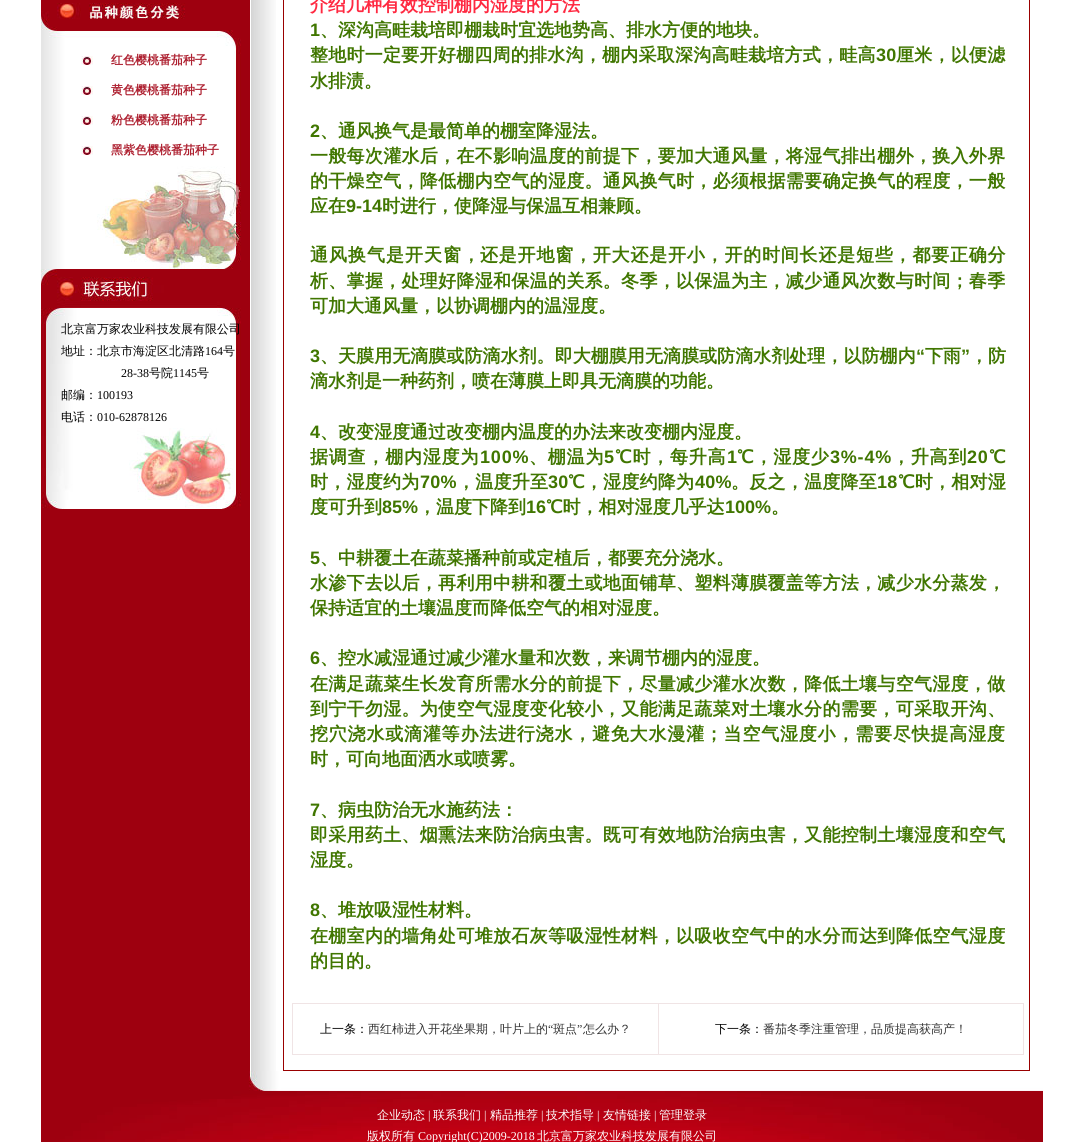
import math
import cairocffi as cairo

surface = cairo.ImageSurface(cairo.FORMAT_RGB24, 1084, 1142)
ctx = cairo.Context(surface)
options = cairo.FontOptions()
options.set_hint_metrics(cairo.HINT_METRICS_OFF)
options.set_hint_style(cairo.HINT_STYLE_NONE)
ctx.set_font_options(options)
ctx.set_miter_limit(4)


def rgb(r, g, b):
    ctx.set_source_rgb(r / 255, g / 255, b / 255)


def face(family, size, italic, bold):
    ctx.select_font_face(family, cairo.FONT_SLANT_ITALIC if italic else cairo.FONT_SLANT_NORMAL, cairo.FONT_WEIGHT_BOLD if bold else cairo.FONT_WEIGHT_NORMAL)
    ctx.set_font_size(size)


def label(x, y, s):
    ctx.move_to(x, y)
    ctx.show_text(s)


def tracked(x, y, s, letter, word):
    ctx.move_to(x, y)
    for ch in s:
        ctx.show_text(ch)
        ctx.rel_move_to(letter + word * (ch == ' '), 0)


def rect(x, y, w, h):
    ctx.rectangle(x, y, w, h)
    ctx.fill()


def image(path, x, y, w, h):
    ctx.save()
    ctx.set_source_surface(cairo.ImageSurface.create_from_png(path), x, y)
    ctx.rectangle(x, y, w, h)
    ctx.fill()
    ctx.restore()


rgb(255, 255, 255)
ctx.paint()
rgb(158, 0, 15)
rect(41, 0, 209, 1071)
image('image0.png', 41, 3, 144, 27)
image('image1.png', 41, 30, 200, 239)
image('image2.png', 81, 56, 12, 9)
face('WenQuanYi Zen Hei', 12, 0, 1)
rgb(174, 33, 49)
label(111, 64, '红色樱桃番茄种子')
image('image2.png', 81, 86, 12, 9)
label(111, 94, '黄色樱桃番茄种子')
image('image2.png', 81, 116, 12, 9)
label(111, 124, '粉色樱桃番茄种子')
image('image2.png', 81, 146, 12, 9)
label(111, 154, '黑紫色樱桃番茄种子')
image('image3.png', 41, 269, 180, 39)
image('image4.png', 41, 308, 200, 201)
face('WenQuanYi Zen Hei Medium', 12, 0, 0)
rgb(0, 0, 0)
label(61, 333, '北京富万家农业科技发展有限公司')
label(61, 355, '地址：北京市海淀区北清路')
face('Liberation Serif', 12, 0, 0)
label(205, 355, '164')
face('WenQuanYi Zen Hei Medium', 12, 0, 0)
label(223, 355, '号')
face('Liberation Serif', 12, 0, 0)
label(121, 377, '28-38')
face('WenQuanYi Zen Hei Medium', 12, 0, 0)
label(149, 377, '号院')
face('Liberation Serif', 12, 0, 0)
label(173, 377, '1145')
face('WenQuanYi Zen Hei Medium', 12, 0, 0)
label(197, 377, '号')
label(61, 399, '邮编：')
face('Liberation Serif', 12, 0, 0)
label(97, 399, '100193')
face('WenQuanYi Zen Hei Medium', 12, 0, 0)
label(61, 421, '电话：')
face('Liberation Serif', 12, 0, 0)
label(97, 421, '010-62878126')
image('image5.png', 251, 0, 25, 1071)
ctx.rectangle(283.5, -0.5, 746, 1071)
rgb(153, 0, 0)
ctx.set_line_width(1)
ctx.stroke()
face('WenQuanYi Zen Hei', 18, 0, 1)
rgb(255, 41, 65)
label(310, 11, '介绍几种有效控制棚内湿度的方法')
face('Liberation Sans', 18, 0, 1)
rgb(64, 118, 0)
label(310, 36, '1')
face('WenQuanYi Zen Hei', 18, 0, 1)
label(320, 36, '、深沟高畦栽培即棚栽时宜选地势高、排水方便的地块。')
tracked(310, 61, '整地时一定要开好棚四周的排水沟，棚内采取深沟高畦栽培方式，畦高', 0.25, 0)
face('Liberation Sans', 18, 0, 1)
tracked(876, 61, '30', 0.25, 0)
face('WenQuanYi Zen Hei', 18, 0, 1)
tracked(896, 61, '厘米，以便滤', 0.25, 0)
label(310, 87, '水排渍。')
face('Liberation Sans', 18, 0, 1)
label(310, 137, '2')
face('WenQuanYi Zen Hei', 18, 0, 1)
label(320, 137, '、通风换气是最简单的棚室降湿法。')
tracked(310, 162, '一般每次灌水后，在不影响温度的前提下，要加大通风量，将湿气排出棚外，换入外界', 0.3, 0)
tracked(310, 187, '的干燥空气，降低棚内空气的湿度。通风换气时，必须根据需要确定换气的程度，一般', 0.3, 0)
label(310, 212, '应在')
face('Liberation Sans', 18, 0, 1)
label(346, 212, '9-14')
face('WenQuanYi Zen Hei', 18, 0, 1)
label(382, 212, '时进行，使降湿与保温互相兼顾。')
tracked(310, 261, '通风换气是开天窗，', 1, 0)
tracked(480, 261, '还是开地窗，开大还是开小，开的时间长还是短些，都要正确分', 0.8, 0)
tracked(310, 287, '析、掌握，处理好降湿和保温的关系。冬季，以保温为主，减少通风次数与时间；春季', 0.3, 0)
label(310, 312, '可加大通风量，以协调棚内的温湿度。')
face('Liberation Sans', 18, 0, 1)
tracked(310, 362, '3', 0.05, 0)
face('WenQuanYi Zen Hei', 18, 0, 1)
tracked(320, 362, '、天膜用无滴膜或防滴水剂。即大棚膜用无滴膜或防滴水剂处理，以防棚内', 0.05, 0)
face('Liberation Sans', 18, 0, 1)
tracked(916, 362, '“', 0.05, 0)
face('WenQuanYi Zen Hei', 18, 0, 1)
tracked(925, 362, '下雨', 0.05, 0)
face('Liberation Sans', 18, 0, 1)
tracked(961, 362, '”', 0.05, 0)
face('WenQuanYi Zen Hei', 18, 0, 1)
tracked(970, 362, '，防', 0.05, 0)
label(310, 387, '滴水剂是一种药剂，喷在薄膜上即具无滴膜的功能。')
face('Liberation Sans', 18, 0, 1)
label(310, 438, '4')
face('WenQuanYi Zen Hei', 18, 0, 1)
label(320, 438, '、改变湿度通过改变棚内温度的办法来改变棚内湿度。')
tracked(310, 463, '据调查，棚内湿度为', 0.8, 0)
face('Liberation Sans', 18, 0, 1)
tracked(480, 463, '100%', 0.8, 0)
face('WenQuanYi Zen Hei', 18, 0, 1)
tracked(529, 463, '、棚温为', 0.8, 0)
face('Liberation Sans', 18, 0, 1)
tracked(604, 463, '5', 0.8, 0)
face('WenQuanYi Zen Hei', 18, 0, 1)
tracked(615, 463, '℃时，每升高', 0.8, 0)
face('Liberation Sans', 18, 0, 1)
tracked(727, 463, '1', 0.8, 0)
face('WenQuanYi Zen Hei', 18, 0, 1)
tracked(737, 463, '℃，湿度少', 0.8, 0)
face('Liberation Sans', 18, 0, 1)
tracked(830, 463, '3%-4%', 0.8, 0)
face('WenQuanYi Zen Hei', 18, 0, 1)
tracked(892, 463, '，升高到', 0.8, 0)
face('Liberation Sans', 18, 0, 1)
tracked(967, 463, '20', 0.8, 0)
face('WenQuanYi Zen Hei', 18, 0, 1)
tracked(989, 463, '℃', 0.8, 0)
tracked(310, 488, '时，湿度约为', 0.25, 0)
face('Liberation Sans', 18, 0, 1)
tracked(420, 488, '70%', 0.25, 0)
face('WenQuanYi Zen Hei', 18, 0, 1)
tracked(457, 488, '，温度升至', 0.25, 0)
face('Liberation Sans', 18, 0, 1)
tracked(548, 488, '30', 0.25, 0)
face('WenQuanYi Zen Hei', 18, 0, 1)
tracked(568, 488, '℃，湿度约降为', 0.25, 0)
face('Liberation Sans', 18, 0, 1)
tracked(695, 488, '40%', 0.25, 0)
face('WenQuanYi Zen Hei', 18, 0, 1)
tracked(731, 488, '。反之，温度降至', 0.25, 0)
face('Liberation Sans', 18, 0, 1)
tracked(877, 488, '18', 0.25, 0)
face('WenQuanYi Zen Hei', 18, 0, 1)
tracked(898, 488, '℃时，相对湿', 0.25, 0)
label(310, 513, '度可升到')
face('Liberation Sans', 18, 0, 1)
label(382, 513, '85%')
face('WenQuanYi Zen Hei', 18, 0, 1)
label(418, 513, '，温度下降到')
face('Liberation Sans', 18, 0, 1)
label(526, 513, '16')
face('WenQuanYi Zen Hei', 18, 0, 1)
label(546, 513, '℃时，相对湿度几乎达')
face('Liberation Sans', 18, 0, 1)
label(725, 513, '100%')
face('WenQuanYi Zen Hei', 18, 0, 1)
label(771, 513, '。')
face('Liberation Sans', 18, 0, 1)
label(310, 564, '5')
face('WenQuanYi Zen Hei', 18, 0, 1)
label(320, 564, '、中耕覆土在蔬菜播种前或定植后，都要充分浇水。')
tracked(310, 589, '水渗下去以后，再利用中耕和覆土或地面铺草、塑料薄膜覆盖等方法，减少水分蒸发，', 0.3, 0)
label(310, 614, '保持适宜的土壤温度而降低空气的相对湿度。')
face('Liberation Sans', 18, 0, 1)
label(310, 664, '6')
face('WenQuanYi Zen Hei', 18, 0, 1)
label(320, 664, '、控水减湿通过减少灌水量和次数，来调节棚内的湿度。')
tracked(310, 690, '在满足蔬菜生长发育所需水分的前提下，尽量减少灌水次数，降低土壤与空气湿度，做', 0.3, 0)
tracked(310, 715, '到宁干勿湿。为使空气湿度变化较小，又能满足蔬菜对土壤水分的需要，可采取开沟、', 0.3, 0)
tracked(310, 740, '挖穴浇水或滴灌等办法进行浇水，避免大水漫灌；当空气湿度小，需要尽快提高湿度', 0.8, 0)
label(310, 765, '时，可向地面洒水或喷雾。')
face('Liberation Sans', 18, 0, 1)
label(310, 816, '7')
face('WenQuanYi Zen Hei', 18, 0, 1)
label(320, 816, '、病虫防治无水施药法：')
tracked(310, 841, '即采用药土、烟熏法来防治病虫害。既可有效地防治病虫害，又能控制土壤湿度和空气', 0.3, 0)
label(310, 866, '湿度。')
face('Liberation Sans', 18, 0, 1)
label(310, 916, '8')
face('WenQuanYi Zen Hei', 18, 0, 1)
label(320, 916, '、堆放吸湿性材料。')
tracked(310, 942, '在棚室内的墙角处可堆放石灰等吸湿性材料，以吸收空气中的水分而达到降低空气湿度', 0.3, 0)
label(310, 967, '的目的。')
rgb(240, 228, 229)
rect(292, 1003, 732, 52)
rgb(255, 255, 255)
rect(293, 1004, 365, 50)
face('WenQuanYi Zen Hei Medium', 12, 0, 0)
rgb(0, 0, 0)
label(320, 1033, '上一条：')
rgb(51, 51, 51)
label(368, 1033, '西红柿进入开花坐果期，叶片上的')
face('Liberation Serif', 12, 0, 0)
label(548, 1033, '“')
face('WenQuanYi Zen Hei Medium', 12, 0, 0)
label(553, 1033, '斑点')
face('Liberation Serif', 12, 0, 0)
label(577, 1033, '”')
face('WenQuanYi Zen Hei Medium', 12, 0, 0)
label(583, 1033, '怎么办？')
rgb(255, 255, 255)
rect(659, 1004, 364, 50)
rgb(0, 0, 0)
label(715, 1033, '下一条：')
rgb(51, 51, 51)
label(763, 1033, '番茄冬季注重管理，品质提高获高产！')
image('image6.png', 41, 1071, 1002, 20)
image('image7.png', 41, 1091, 1002, 51)
rgb(255, 255, 255)
label(377, 1119, '企业动态')
face('Liberation Serif', 12, 0, 0)
label(428, 1119, '|')
face('WenQuanYi Zen Hei Medium', 12, 0, 0)
label(433, 1119, '联系我们')
face('Liberation Serif', 12, 0, 0)
label(484, 1119, '|')
face('WenQuanYi Zen Hei Medium', 12, 0, 0)
label(490, 1119, '精品推荐')
face('Liberation Serif', 12, 0, 0)
label(541, 1119, '|')
face('WenQuanYi Zen Hei Medium', 12, 0, 0)
label(546, 1119, '技术指导')
face('Liberation Serif', 12, 0, 0)
label(597, 1119, '|')
face('WenQuanYi Zen Hei Medium', 12, 0, 0)
label(603, 1119, '友情链接')
face('Liberation Serif', 12, 0, 0)
label(654, 1119, '|')
face('WenQuanYi Zen Hei Medium', 12, 0, 0)
label(659, 1119, '管理登录')
label(367, 1140, '版权所有')
face('Liberation Serif', 12, 0, 0)
label(418, 1140, 'Copyright(C)2009-2018')
face('WenQuanYi Zen Hei Medium', 12, 0, 0)
label(537, 1140, '北京富万家农业科技发展有限公司')
surface.write_to_png('render.png')
